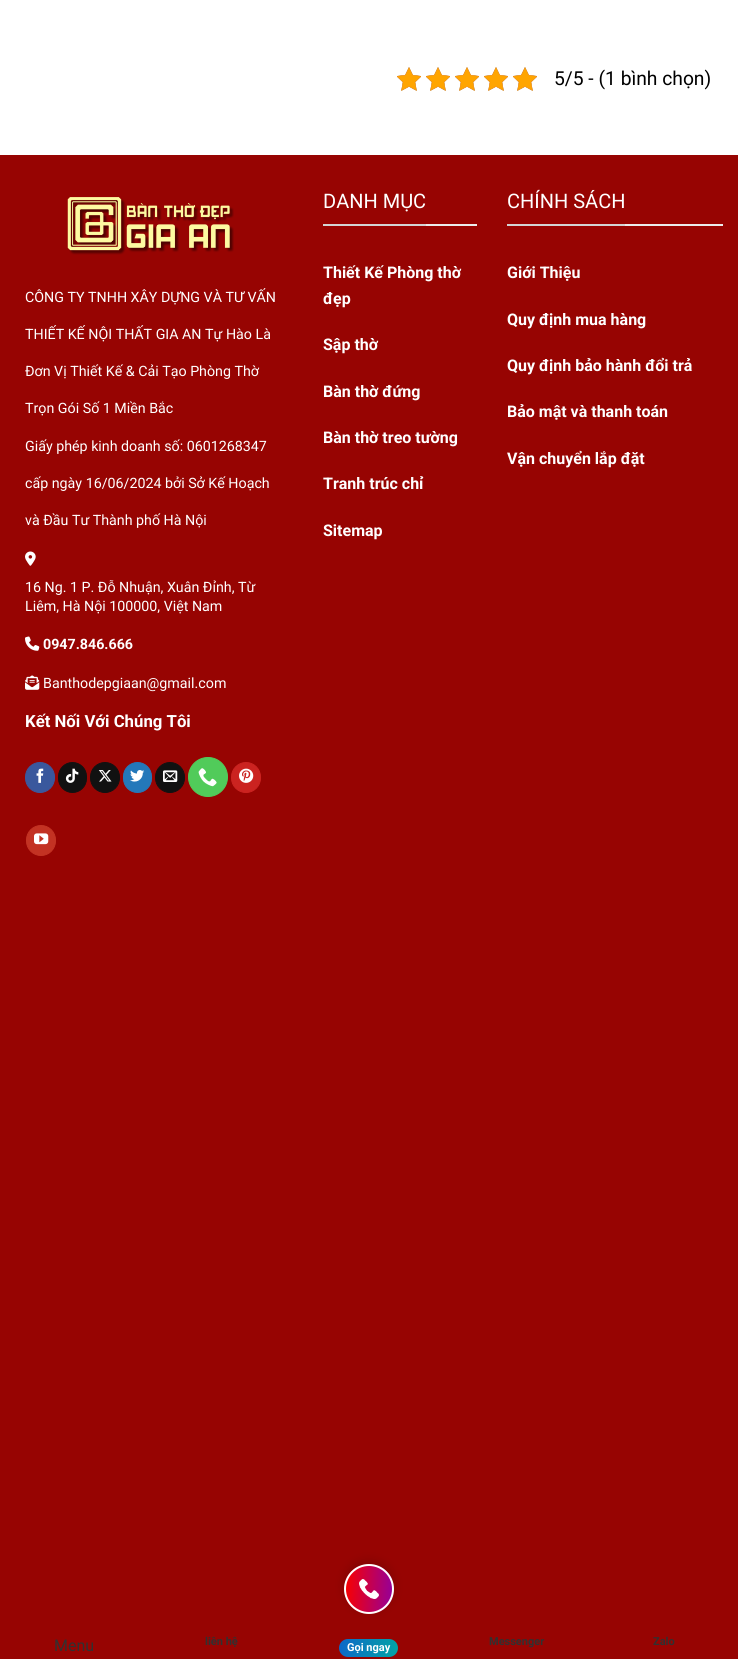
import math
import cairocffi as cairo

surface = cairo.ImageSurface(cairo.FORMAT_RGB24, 738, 1674)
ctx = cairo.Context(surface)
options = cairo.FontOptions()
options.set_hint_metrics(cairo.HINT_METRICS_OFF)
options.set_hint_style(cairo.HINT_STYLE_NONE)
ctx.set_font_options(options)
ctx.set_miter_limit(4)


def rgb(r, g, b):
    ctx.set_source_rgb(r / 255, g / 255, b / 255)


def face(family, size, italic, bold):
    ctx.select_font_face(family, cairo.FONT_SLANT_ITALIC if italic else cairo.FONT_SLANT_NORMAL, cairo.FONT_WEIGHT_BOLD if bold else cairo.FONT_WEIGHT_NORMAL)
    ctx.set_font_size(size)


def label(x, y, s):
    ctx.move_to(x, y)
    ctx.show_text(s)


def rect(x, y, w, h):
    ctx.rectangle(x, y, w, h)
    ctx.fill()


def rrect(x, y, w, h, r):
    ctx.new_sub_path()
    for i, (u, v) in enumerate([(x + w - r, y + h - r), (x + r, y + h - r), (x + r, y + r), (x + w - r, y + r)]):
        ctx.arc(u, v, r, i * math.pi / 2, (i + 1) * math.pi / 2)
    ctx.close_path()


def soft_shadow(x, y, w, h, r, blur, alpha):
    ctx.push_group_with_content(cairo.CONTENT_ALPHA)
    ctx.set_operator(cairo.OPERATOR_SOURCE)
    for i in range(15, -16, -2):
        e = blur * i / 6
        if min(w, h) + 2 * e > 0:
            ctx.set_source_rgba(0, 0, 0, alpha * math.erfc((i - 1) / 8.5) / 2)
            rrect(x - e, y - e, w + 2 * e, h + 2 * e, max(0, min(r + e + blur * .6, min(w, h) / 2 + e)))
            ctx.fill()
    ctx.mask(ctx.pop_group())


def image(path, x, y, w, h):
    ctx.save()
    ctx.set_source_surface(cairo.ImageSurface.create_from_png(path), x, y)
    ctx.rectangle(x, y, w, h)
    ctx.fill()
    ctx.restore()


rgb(255, 255, 255)
ctx.paint()
image('image0.png', 397, 67, 24, 24)
image('image0.png', 426, 67, 24, 24)
image('image0.png', 455, 67, 24, 24)
image('image0.png', 484, 67, 24, 24)
image('image0.png', 513, 67, 24, 24)
image('image1.png', 397, 67, 24, 24)
image('image1.png', 426, 67, 24, 24)
image('image1.png', 455, 67, 24, 24)
image('image1.png', 484, 67, 24, 24)
image('image1.png', 513, 67, 24, 24)
face('Roboto', 19.25, 0, 0)
rgb(0, 0, 0)
label(554, 85, '5/5 - (1 bình chọn)')
rgb(151, 4, 2)
rect(0, 155, 738, 1504)
image('image2.png', 67, 197, 167, 58)
face('Roboto', 14.25, 0, 0)
rgb(255, 255, 255)
label(25, 302, 'CÔNG TY TNHH XÂY DỰNG VÀ TƯ VẤN')
label(25, 339, 'THIẾT KẾ NỘI THẤT GIA AN Tự Hào Là')
label(25, 376, 'Đơn Vị Thiết Kế & Cải Tạo Phòng Thờ')
label(25, 413, 'Trọn Gói Số 1 Miền Bắc')
label(25, 451, 'Giấy phép kinh doanh số: 0601268347')
label(25, 488, 'cấp ngày 16/06/2024 bởi Sở Kế Hoạch')
label(25, 525, 'và Đầu Tư Thành phố Hà Nội')
image('image3.png', 25, 551, 11, 15)
label(25, 592, '16 Ng. 1 P. Đỗ Nhuận, Xuân Đỉnh, Từ')
label(25, 611, 'Liêm, Hà Nội 100000, Việt Nam')
image('image4.png', 25, 636, 15, 15)
face('Roboto', 14.25, 0, 1)
label(43, 649, '0947.846.666')
image('image5.png', 25, 675, 15, 15)
face('Roboto', 14.25, 0, 0)
label(43, 688, 'Banthodepgiaan@gmail.com')
face('Roboto', 16.75, 0, 1)
label(25, 727, 'Kết Nối Với Chúng Tôi')
rgb(58, 88, 157)
rrect(25.5, 762.5, 29, 30, 14.5)
ctx.fill_preserve()
ctx.set_line_width(1)
ctx.stroke()
image('image6.png', 36, 768, 8, 15)
rgb(17, 17, 17)
rrect(58.5, 762.5, 28, 30, 14)
ctx.fill_preserve()
ctx.stroke()
image('image7.png', 65, 768, 14, 15)
rrect(90.5, 762.5, 29, 30, 14.5)
ctx.fill_preserve()
ctx.stroke()
image('image8.png', 98, 770, 14, 12)
rgb(36, 120, 186)
rrect(123.5, 762.5, 28, 30, 14)
ctx.fill_preserve()
ctx.stroke()
image('image9.png', 130, 770, 15, 12)
rgb(17, 17, 17)
rrect(155.5, 762.5, 29, 30, 14.5)
ctx.fill_preserve()
ctx.stroke()
image('image10.png', 163, 770, 15, 12)
rgb(81, 203, 90)
ctx.arc(208, 777, 19.5, 0, 2 * math.pi)
ctx.fill_preserve()
ctx.stroke()
image('image11.png', 198, 768, 19, 19)
rgb(203, 35, 32)
rrect(231.5, 762.5, 29, 30, 14.5)
ctx.fill_preserve()
ctx.stroke()
image('image12.png', 239, 768, 15, 15)
rgb(195, 50, 35)
rrect(26.5, 825.5, 29, 30, 14.5)
ctx.fill_preserve()
ctx.stroke()
image('image13.png', 34, 833, 15, 12)
rgb(236, 236, 236)
rect(426, 224, 51, 2)
rgb(212, 212, 212)
rect(323, 224, 103, 2)
face('Roboto', 20, 0, 0)
rgb(255, 255, 255)
label(323, 208, 'DANH MỤC')
face('Roboto', 16, 0, 1)
label(323, 278, 'Thiết Kế Phòng thờ')
label(323, 304, 'đẹp')
label(323, 350, 'Sập thờ')
label(323, 397, 'Bàn thờ đứng')
label(323, 443, 'Bàn thờ treo tường')
label(323, 489, 'Tranh trúc chỉ')
label(323, 536, 'Sitemap')
rgb(236, 236, 236)
rect(625, 224, 98, 2)
rgb(212, 212, 212)
rect(507, 224, 118, 2)
face('Roboto', 20, 0, 0)
rgb(255, 255, 255)
label(507, 208, 'CHÍNH SÁCH')
face('Roboto', 16, 0, 1)
label(507, 278, 'Giới Thiệu')
label(507, 325, 'Quy định mua hàng')
label(507, 371, 'Quy định bảo hành đổi trả')
label(507, 417, 'Bảo mật và thanh toán')
label(507, 464, 'Vận chuyển lắp đặt')
face('Roboto', 16, 0, 0)
rgb(49, 49, 49)
label(54, 1651, 'Menu')
face('Roboto', 11, 0, 1)
label(205, 1645, 'liên hệ')
rgb(0, 0, 0)
soft_shadow(344, 1561, 50, 50, 25, 5, 0.15)
ctx.save()
rrect(344, 1564, 50, 50, 25)
ctx.clip()
gradient = cairo.LinearGradient(345, 1588, 393, 1590)
gradient.add_color_stop_rgba(0, 0.976, 0, 0, 1)
gradient.add_color_stop_rgba(1, 0.584, 0, 0.6, 1)
ctx.set_source(gradient)
rect(346, 1566, 46, 46)
ctx.restore()
ctx.arc(369, 1589, 24, 0, 2 * math.pi)
rgb(255, 255, 255)
ctx.set_line_width(2)
ctx.stroke()
image('image14.png', 359, 1579, 20, 20)
gradient = cairo.LinearGradient(339, 1647, 399, 1649)
gradient.add_color_stop_rgba(0, 0.055, 0.408, 0.784, 1)
gradient.add_color_stop_rgba(1, 0.008, 0.643, 0.647, 1)
ctx.set_source(gradient)
rrect(339, 1639, 59, 18, 9)
ctx.fill()
rgb(255, 255, 255)
label(347, 1651, 'Gọi ngay')
rgb(49, 49, 49)
label(489, 1645, 'Messenger')
label(653, 1645, 'Zalo')
surface.write_to_png('render.png')
